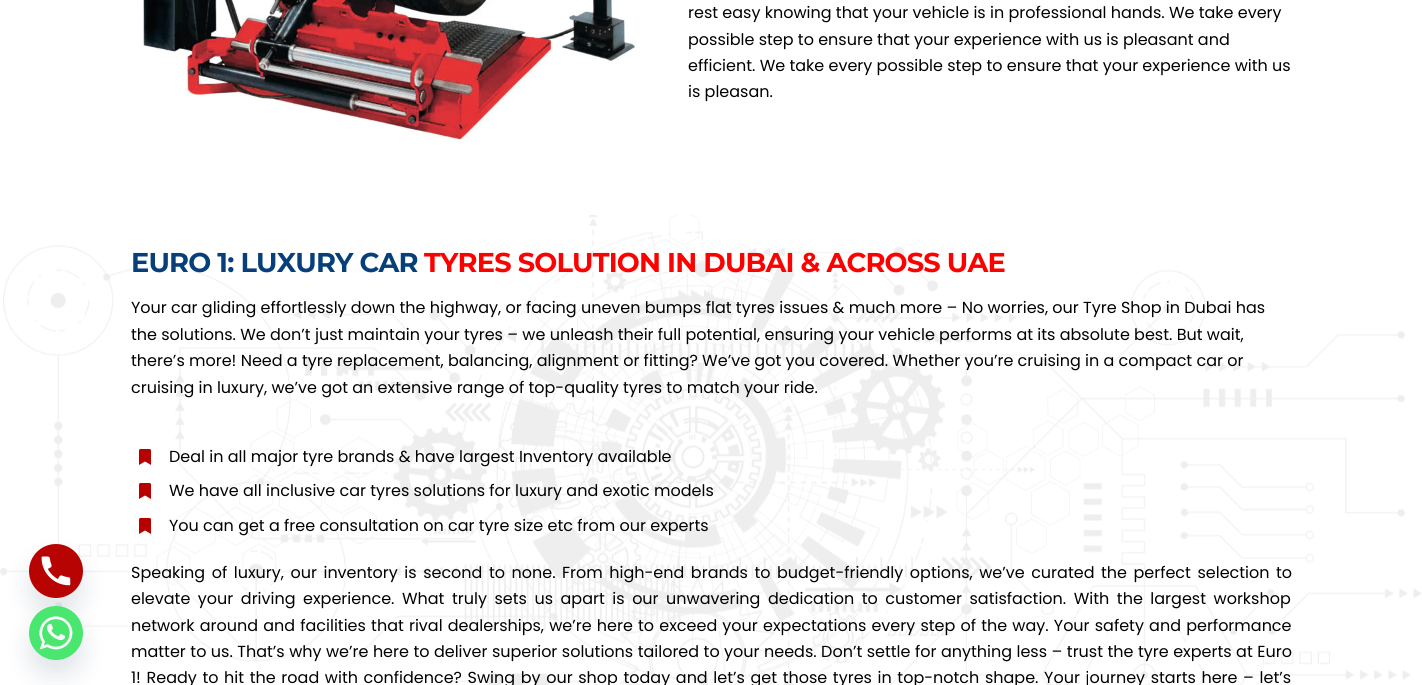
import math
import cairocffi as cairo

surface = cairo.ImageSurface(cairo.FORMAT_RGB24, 1422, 685)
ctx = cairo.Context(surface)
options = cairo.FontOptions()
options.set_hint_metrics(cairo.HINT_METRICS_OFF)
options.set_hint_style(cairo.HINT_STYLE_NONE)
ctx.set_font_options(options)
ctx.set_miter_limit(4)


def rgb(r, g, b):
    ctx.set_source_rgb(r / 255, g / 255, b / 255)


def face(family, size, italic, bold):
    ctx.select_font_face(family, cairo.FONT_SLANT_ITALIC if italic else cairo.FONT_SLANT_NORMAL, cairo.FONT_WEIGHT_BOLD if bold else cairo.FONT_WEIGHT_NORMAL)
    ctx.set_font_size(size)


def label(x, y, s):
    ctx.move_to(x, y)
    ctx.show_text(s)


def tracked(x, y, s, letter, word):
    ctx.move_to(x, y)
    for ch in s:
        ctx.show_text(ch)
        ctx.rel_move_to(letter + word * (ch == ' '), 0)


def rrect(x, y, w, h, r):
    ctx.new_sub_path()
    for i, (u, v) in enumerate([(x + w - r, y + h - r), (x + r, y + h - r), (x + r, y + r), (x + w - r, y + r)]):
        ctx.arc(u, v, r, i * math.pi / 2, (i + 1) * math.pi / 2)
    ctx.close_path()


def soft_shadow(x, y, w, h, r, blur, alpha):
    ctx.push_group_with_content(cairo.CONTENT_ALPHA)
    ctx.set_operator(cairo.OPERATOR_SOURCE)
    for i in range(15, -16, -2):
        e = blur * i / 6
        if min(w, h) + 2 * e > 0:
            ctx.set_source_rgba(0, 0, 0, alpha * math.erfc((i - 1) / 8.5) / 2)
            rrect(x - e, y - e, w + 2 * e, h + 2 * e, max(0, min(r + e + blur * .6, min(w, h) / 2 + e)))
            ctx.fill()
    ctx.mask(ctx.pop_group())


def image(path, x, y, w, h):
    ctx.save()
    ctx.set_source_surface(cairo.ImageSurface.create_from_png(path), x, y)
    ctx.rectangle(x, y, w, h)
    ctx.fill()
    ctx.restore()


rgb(255, 255, 255)
ctx.paint()
image('image3.png', 0, 215, 1422, 470)
rgb(73, 104, 126)
soft_shadow(29, 560, 54, 54, 27, 12, 0.16)
image('image0.png', 29, 544, 54, 54)
soft_shadow(29, 622, 54, 54, 27, 12, 0.16)
image('image1.png', 29, 606, 54, 54)
image('image2.png', 142, 0, 495, 143)
face('Poppins', 16, 0, 0)
rgb(0, 0, 0)
label(688, 18, 'rest easy knowing that your vehicle is in professional hands. We take every')
label(688, 45, 'possible step to ensure that your experience with us is pleasant and')
label(688, 71, 'efficient. We take every possible step to ensure that your experience with us')
label(688, 97, 'is pleasan.')
face('Montserrat', 27.2, 0, 1)
rgb(7, 63, 122)
tracked(131, 272, 'EURO 1: LUXURY CAR', -0.8, 0)
rgb(255, 0, 0)
tracked(424, 272, 'TYRES SOLUTION IN DUBAI & ACROSS UAE', -0.8, 0)
face('Poppins', 16, 0, 0)
rgb(0, 0, 0)
label(131, 313, 'Your car gliding effortlessly down the highway, or facing uneven bumps flat tyres issues & much more – No worries, our Tyre Shop in Dubai has')
label(131, 340, 'the solutions. We don’t just maintain your tyres – we unleash their full potential, ensuring your vehicle performs at its absolute best. But wait,')
label(131, 366, 'there’s more! Need a tyre replacement, balancing, alignment or fitting? We’ve got you covered. Whether you’re cruising in a compact car or')
label(131, 393, 'cruising in luxury, we’ve got an extensive range of top-quality tyres to match your ride.')
image('image4.png', 139, 449, 12, 16)
label(169, 462, 'Deal in all major tyre brands & have largest Inventory available')
image('image4.png', 139, 483, 12, 16)
label(169, 496, 'We have all inclusive car tyres solutions for luxury and exotic models')
image('image4.png', 139, 518, 12, 16)
label(169, 531, 'You can get a free consultation on car tyre size etc from our experts')
tracked(131, 578, 'Speaking of luxury, our inventory is second to none. From high-end brands to budget-friendly options, we’ve curated the perfect selection to', 0, 2.25)
tracked(131, 604, 'elevate your driving experience. What truly sets us apart is our unwavering dedication to customer satisfaction. With the largest workshop', 0, 3.25)
tracked(131, 631, 'network around and facilities that rival dealerships, we’re here to exceed your expectations every step of the way. Your safety and performance', 0, 0.9)
tracked(131, 657, 'matter to us. That’s why we’re here to deliver superior solutions tailored to your needs. Don’t settle for anything less – trust the tyre experts at Euro', 0, 0.2)
tracked(131, 683, '1! Ready to hit the road with confidence? Swing by our shop today and let’s get those tyres in top-notch shape. Your journey starts here – let’s', 0, 1.35)
surface.write_to_png('render.png')
